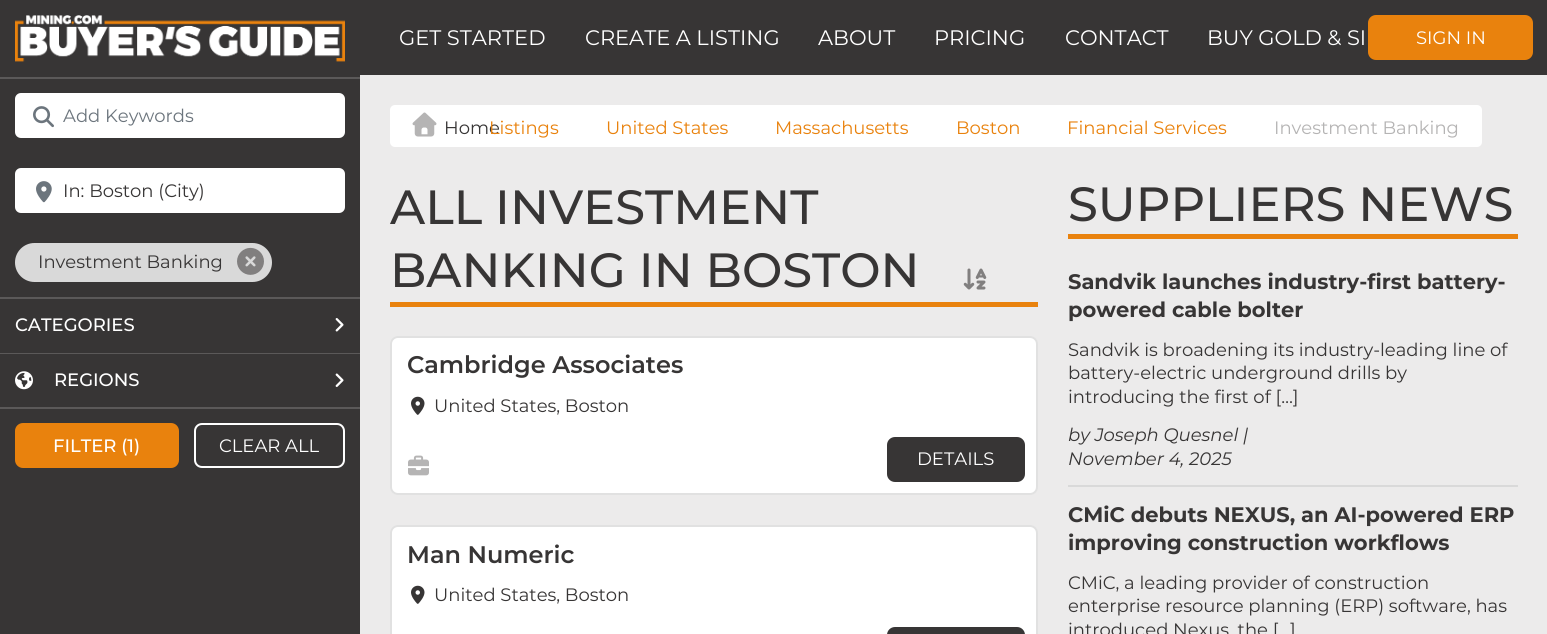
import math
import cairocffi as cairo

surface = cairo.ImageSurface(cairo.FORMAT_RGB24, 1547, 634)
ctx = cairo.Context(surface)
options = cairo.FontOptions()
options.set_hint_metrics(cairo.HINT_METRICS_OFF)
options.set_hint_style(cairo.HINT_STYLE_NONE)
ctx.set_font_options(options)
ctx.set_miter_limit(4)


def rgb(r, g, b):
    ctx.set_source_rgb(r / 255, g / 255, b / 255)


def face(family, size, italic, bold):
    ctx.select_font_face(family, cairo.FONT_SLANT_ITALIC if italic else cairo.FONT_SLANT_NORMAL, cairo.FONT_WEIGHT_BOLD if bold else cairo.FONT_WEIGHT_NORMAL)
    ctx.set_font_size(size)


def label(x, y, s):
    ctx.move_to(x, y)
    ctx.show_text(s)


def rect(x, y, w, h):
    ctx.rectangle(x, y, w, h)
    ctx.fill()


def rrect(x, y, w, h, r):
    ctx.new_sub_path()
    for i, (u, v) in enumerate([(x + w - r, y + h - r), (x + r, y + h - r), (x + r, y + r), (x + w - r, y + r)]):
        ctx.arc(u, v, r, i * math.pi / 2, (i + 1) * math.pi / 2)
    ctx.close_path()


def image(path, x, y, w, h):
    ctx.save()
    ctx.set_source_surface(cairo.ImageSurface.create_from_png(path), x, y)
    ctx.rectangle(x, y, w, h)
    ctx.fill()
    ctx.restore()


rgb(236, 235, 235)
ctx.paint()
rgb(55, 53, 53)
rect(360, 0, 1187, 75)
face('Montserrat', 21, 0, 0)
rgb(255, 255, 255)
label(399, 45, 'GET STARTED')
label(585, 45, 'CREATE A LISTING')
label(818, 45, 'ABOUT')
label(934, 45, 'PRICING')
label(1065, 45, 'CONTACT')
label(1207, 45, 'BUY GOLD & SI')
rgb(233, 130, 13)
rrect(1368, 15, 165, 45, 8)
ctx.fill()
face('Montserrat', 18, 0, 0)
rgb(255, 255, 255)
label(1416, 44, 'SIGN IN')
rgb(55, 53, 53)
rect(0, 0, 360, 634)
image('image0.png', 15, 15, 330, 47)
rgb(91, 89, 89)
rect(0, 77, 360, 2)
rgb(255, 255, 255)
rrect(15, 93, 330, 45, 6)
ctx.fill()
image('image1.png', 33, 106, 21, 22)
rgb(108, 117, 125)
label(63, 122, 'Add Keywords')
rgb(255, 255, 255)
rrect(15, 168, 330, 45, 6)
ctx.fill()
image('image2.png', 36, 181, 16, 22)
rgb(55, 53, 53)
label(63, 197, 'In: Boston (City)')
rgb(217, 217, 217)
rrect(15, 243, 257, 39, 19.5)
ctx.fill()
rgb(55, 53, 53)
label(38, 268, 'Investment Banking')
image('image3.png', 237, 247, 27, 28)
rgb(91, 89, 89)
rect(0, 297, 360, 2)
rect(0, 353, 360, 1)
face('Montserrat Medium', 18, 0, 0)
rgb(255, 255, 255)
label(15, 331, 'CATEGORIES')
image('image4.png', 335, 318, 9, 14)
rgb(91, 89, 89)
rect(0, 407, 360, 2)
image('image5.png', 15, 371, 18, 19)
rgb(255, 255, 255)
label(54, 386, 'REGIONS')
image('image6.png', 335, 373, 9, 14)
rgb(233, 130, 13)
rrect(15, 423, 164, 45, 8)
ctx.fill()
rgb(255, 255, 255)
label(53, 452, 'FILTER (1)')
rrect(195, 424, 149, 43, 7)
ctx.stroke()
face('Montserrat', 18, 0, 0)
label(219, 452, 'CLEAR ALL')
rrect(390, 105, 1092, 42, 5)
ctx.fill()
image('image7.png', 412, 112, 25, 25)
rgb(55, 53, 53)
label(444, 134, 'Home')
rgb(233, 130, 13)
label(489, 134, 'Listings')
label(606, 134, 'United States')
label(775, 134, 'Massachusetts')
label(956, 134, 'Boston')
label(1067, 134, 'Financial Services')
rgb(181, 180, 180)
label(1274, 134, 'Investment Banking')
rgb(233, 130, 13)
rect(390, 302, 648, 5)
face('Montserrat Medium', 48, 0, 0)
rgb(55, 53, 53)
label(390, 224, 'ALL INVESTMENT')
label(390, 287, 'BANKING IN BOSTON')
image('image8.png', 963, 268, 24, 22)
rgb(255, 255, 255)
rrect(390, 336, 648, 159, 8)
ctx.fill()
rrect(391, 337, 646, 157, 7)
ctx.set_source_rgba(0, 0, 0, 0.12)
ctx.stroke()
face('Montserrat SemiBold', 24, 0, 0)
rgb(55, 53, 53)
label(407, 373, 'Cambridge Associates')
image('image9.png', 411, 396, 14, 19)
face('Montserrat', 18, 0, 0)
label(434, 412, 'United States, Boston')
image('image10.png', 408, 455, 21, 21)
rrect(887, 437, 138, 45, 8)
ctx.fill()
rgb(255, 255, 255)
label(917, 465, 'DETAILS')
rrect(390, 525, 648, 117, 8)
ctx.fill()
rrect(391, 526, 646, 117, 7)
ctx.set_source_rgba(0, 0, 0, 0.12)
ctx.stroke()
face('Montserrat SemiBold', 24, 0, 0)
rgb(55, 53, 53)
label(407, 563, 'Man Numeric')
image('image9.png', 411, 585, 14, 19)
face('Montserrat', 18, 0, 0)
label(434, 601, 'United States, Boston')
rrect(887, 627, 138, 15, 8)
ctx.fill()
rgb(233, 130, 13)
rect(1068, 234, 450, 5)
face('Montserrat Medium', 48, 0, 0)
rgb(55, 53, 53)
label(1068, 221, 'SUPPLIERS NEWS')
rgb(217, 217, 217)
rect(1068, 485, 450, 2)
face('Montserrat', 21, 0, 1)
rgb(55, 53, 53)
label(1068, 289, 'Sandvik launches industry-first battery-')
label(1068, 317, 'powered cable bolter')
face('Montserrat', 18, 0, 0)
label(1068, 356, 'Sandvik is broadening its industry-leading line of')
label(1068, 379, 'battery-electric underground drills by')
label(1068, 403, 'introducing the first of […]')
face('Montserrat', 18, 1, 0)
label(1068, 441, 'by Joseph Quesnel |')
label(1068, 465, 'November 4, 2025')
face('Montserrat', 21, 0, 1)
label(1068, 522, 'CMiC debuts NEXUS, an AI-powered ERP')
label(1068, 550, 'improving construction workflows')
face('Montserrat', 18, 0, 0)
label(1068, 589, 'CMiC, a leading provider of construction')
label(1068, 612, 'enterprise resource planning (ERP) software, has')
label(1068, 636, 'introduced Nexus, the […]')
surface.write_to_png('render.png')
